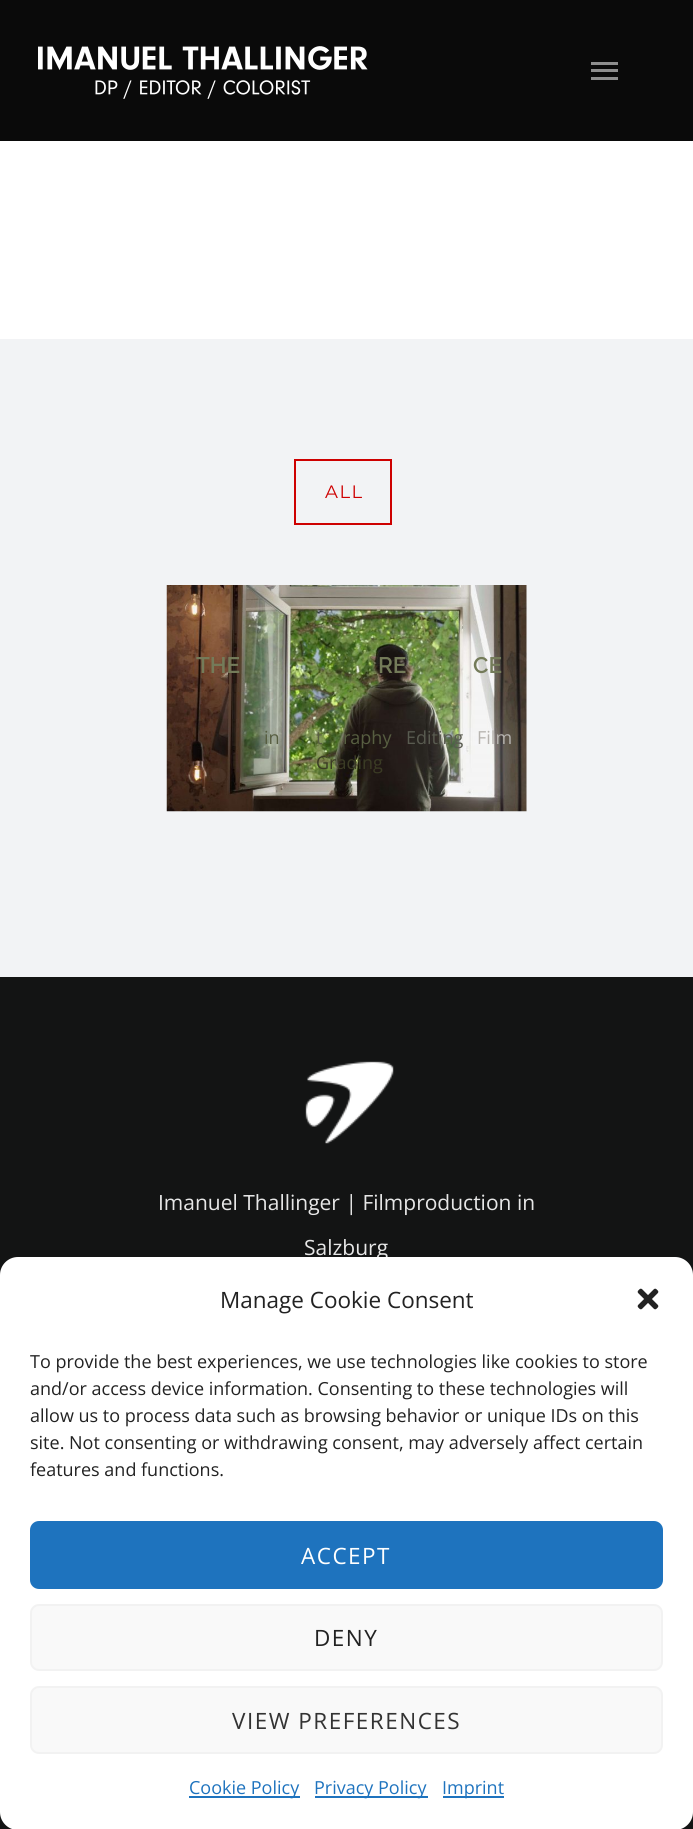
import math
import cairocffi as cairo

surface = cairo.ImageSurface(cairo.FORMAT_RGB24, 693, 1829)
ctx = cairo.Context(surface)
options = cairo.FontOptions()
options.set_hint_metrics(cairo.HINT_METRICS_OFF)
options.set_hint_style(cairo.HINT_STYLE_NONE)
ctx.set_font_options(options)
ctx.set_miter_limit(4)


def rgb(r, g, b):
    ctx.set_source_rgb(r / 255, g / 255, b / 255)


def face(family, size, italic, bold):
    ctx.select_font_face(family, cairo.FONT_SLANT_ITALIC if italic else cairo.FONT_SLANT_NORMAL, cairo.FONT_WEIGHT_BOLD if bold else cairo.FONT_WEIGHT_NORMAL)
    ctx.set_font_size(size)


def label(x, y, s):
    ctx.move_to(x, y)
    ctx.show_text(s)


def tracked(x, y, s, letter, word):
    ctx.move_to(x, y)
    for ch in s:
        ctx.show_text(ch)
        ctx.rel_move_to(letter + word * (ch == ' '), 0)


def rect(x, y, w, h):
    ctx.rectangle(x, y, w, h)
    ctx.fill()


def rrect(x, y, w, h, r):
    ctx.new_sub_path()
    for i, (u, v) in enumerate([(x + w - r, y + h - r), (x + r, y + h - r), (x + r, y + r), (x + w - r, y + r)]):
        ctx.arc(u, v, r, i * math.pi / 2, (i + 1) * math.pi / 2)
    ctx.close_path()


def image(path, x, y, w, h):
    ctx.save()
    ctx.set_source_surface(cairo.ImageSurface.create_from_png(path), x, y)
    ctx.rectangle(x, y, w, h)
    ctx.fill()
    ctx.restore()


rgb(19, 20, 20)
ctx.paint()
rgb(10, 10, 10)
rect(0, 0, 693, 141)
image('image0.png', 38, 46, 330, 53)
rgb(142, 142, 142)
rect(591, 62, 27, 3)
rect(591, 69, 27, 3)
rect(591, 77, 27, 3)
rgb(255, 255, 255)
rect(0, 141, 693, 198)
rgb(242, 243, 245)
rect(0, 339, 693, 638)
ctx.rectangle(295, 460, 96, 64)
rgb(206, 0, 0)
ctx.stroke()
face('Montserrat', 18, 0, 0)
tracked(325, 498, 'ALL', 1.5, 0)
image('image1.png', 166, 585, 361, 227)
face('Raleway SemiBold', 22.5, 0, 0)
rgb(116, 123, 89)
label(196, 673, 'THE')
label(378, 673, 'RE')
label(473, 673, 'CE')
face('Open Sans', 18, 0, 0)
rgb(87, 94, 65)
label(264, 744, 'in')
label(316, 744, 't')
label(343, 744, 'raphy')
rgb(89, 91, 80)
label(406, 744, 'Editing')
rgb(182, 179, 175)
label(477, 744, 'Film')
rgb(58, 59, 36)
label(316, 769, 'Grading')
image('image2.png', 305, 1061, 89, 83)
face('Open Sans', 21, 0, 0)
rgb(231, 231, 231)
label(158, 1210, 'Imanuel Thallinger | Filmproduction in')
label(304, 1255, 'Salzburg')
rgb(255, 255, 255)
rrect(0, 1257, 693, 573, 18)
ctx.fill()
face('Open Sans', 22.5, 0, 0)
rgb(34, 34, 34)
label(220, 1308, 'Manage Cookie Consent')
image('image3.png', 637, 1288, 22, 22)
face('Open Sans', 18, 0, 0)
label(30, 1368, 'To provide the best experiences, we use technologies like cookies to store')
label(30, 1395, 'and/or access device information. Consenting to these technologies will')
label(30, 1422, 'allow us to process data such as browsing behavior or unique IDs on this')
label(30, 1449, 'site. Not consenting or withdrawing consent, may adversely affect certain')
label(30, 1476, 'features and functions.')
rgb(30, 115, 190)
rrect(31, 1522, 631, 66, 8)
ctx.fill_preserve()
ctx.stroke()
face('Open Sans', 22.5, 0, 0)
rgb(255, 255, 255)
tracked(301, 1564, 'ACCEPT', 1.5, 0)
rgb(249, 249, 249)
rrect(31, 1605, 631, 65, 8)
ctx.fill_preserve()
rgb(242, 242, 242)
ctx.stroke()
rgb(34, 34, 34)
tracked(314, 1646, 'DENY', 1.5, 0)
rgb(249, 249, 249)
rrect(31, 1687, 631, 66, 8)
ctx.fill_preserve()
rgb(242, 242, 242)
ctx.stroke()
rgb(51, 51, 51)
tracked(232, 1729, 'VIEW PREFERENCES', 1.5, 0)
rgb(30, 115, 190)
rect(189, 1796, 111, 2)
face('Open Sans', 18, 0, 0)
label(189, 1794, 'Cookie Policy')
rect(315, 1796, 113, 2)
label(314, 1794, 'Privacy Policy')
rect(443, 1796, 61, 2)
label(442, 1794, 'Imprint')
surface.write_to_png('render.png')
